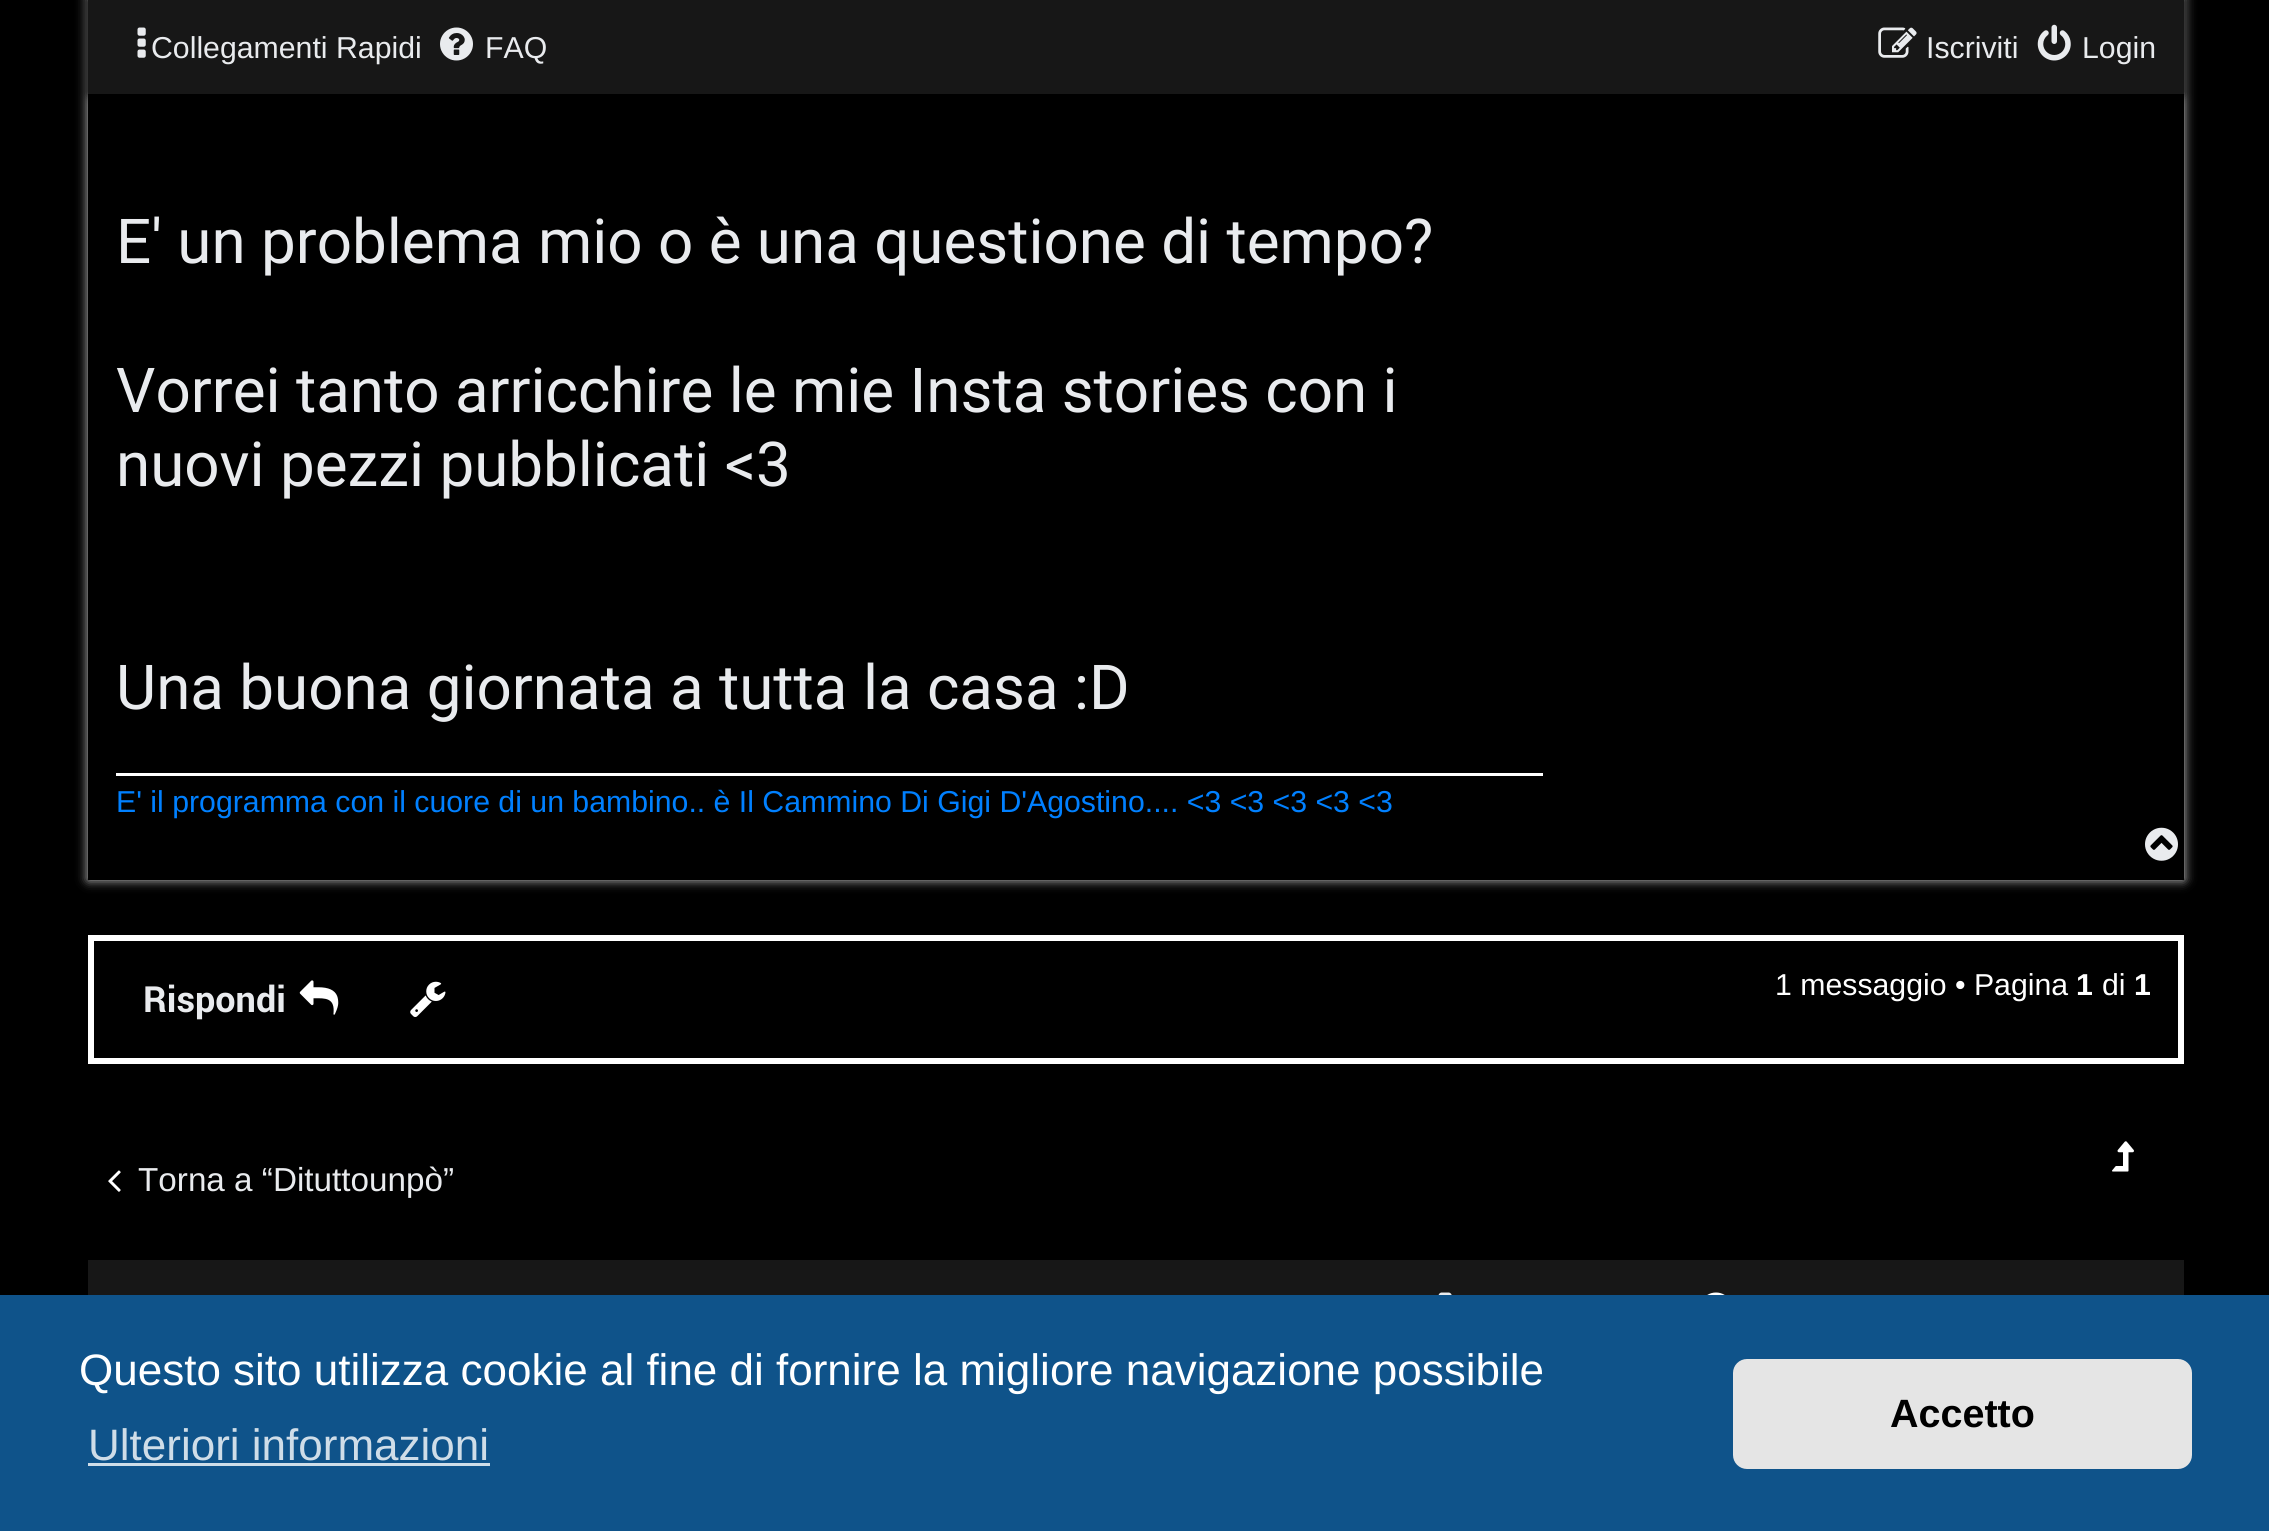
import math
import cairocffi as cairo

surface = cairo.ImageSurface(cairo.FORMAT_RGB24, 2269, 1531)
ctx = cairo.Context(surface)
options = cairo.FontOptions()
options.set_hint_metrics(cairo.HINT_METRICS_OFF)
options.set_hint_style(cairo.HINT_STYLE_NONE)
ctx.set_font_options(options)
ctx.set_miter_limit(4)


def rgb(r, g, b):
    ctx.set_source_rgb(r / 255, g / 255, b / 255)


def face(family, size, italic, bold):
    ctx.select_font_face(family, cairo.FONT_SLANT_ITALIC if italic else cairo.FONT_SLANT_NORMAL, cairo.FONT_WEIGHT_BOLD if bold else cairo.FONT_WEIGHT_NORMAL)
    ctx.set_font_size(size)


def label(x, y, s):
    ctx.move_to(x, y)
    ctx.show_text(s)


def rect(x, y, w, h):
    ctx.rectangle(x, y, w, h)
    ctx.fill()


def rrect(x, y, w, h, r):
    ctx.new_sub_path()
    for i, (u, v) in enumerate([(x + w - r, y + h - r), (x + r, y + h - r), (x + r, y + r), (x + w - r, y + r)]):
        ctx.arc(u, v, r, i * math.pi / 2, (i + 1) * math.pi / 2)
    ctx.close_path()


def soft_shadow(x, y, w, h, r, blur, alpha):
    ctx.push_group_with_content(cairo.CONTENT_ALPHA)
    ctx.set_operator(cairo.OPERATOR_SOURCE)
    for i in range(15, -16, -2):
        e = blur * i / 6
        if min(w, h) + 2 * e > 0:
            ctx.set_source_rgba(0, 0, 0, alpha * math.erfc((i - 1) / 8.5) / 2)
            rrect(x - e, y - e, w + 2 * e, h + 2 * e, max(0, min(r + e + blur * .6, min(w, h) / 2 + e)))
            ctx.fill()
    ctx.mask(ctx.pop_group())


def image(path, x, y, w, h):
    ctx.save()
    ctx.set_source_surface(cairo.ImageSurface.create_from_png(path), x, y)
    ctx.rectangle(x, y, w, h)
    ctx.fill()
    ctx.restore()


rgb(0, 0, 0)
ctx.paint()
rgb(204, 204, 204)
soft_shadow(88, -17, 2096, 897, 0, 5.5, 1)
rgb(0, 0, 0)
rect(88, 94, 2096, 786)
rgb(0, 0, 0)
soft_shadow(88, 0, 2096, 94, 0, 5.5, 1)
rgb(23, 23, 23)
rect(88, 0, 2096, 94)
image('image0.png', 137, 27, 9, 31)
face('Liberation Sans', 30.25, 0, 0)
rgb(233, 235, 238)
label(151, 58, 'Collegamenti Rapidi')
image('image1.png', 440, 27, 33, 34)
label(485, 58, 'FAQ')
image('image2.png', 1878, 27, 39, 31)
label(1926, 58, 'Iscriviti')
image('image3.png', 2037, 24, 34, 37)
label(2082, 58, 'Login')
face('Roboto', 61.9, 0, 0)
label(116, 263, 'E\' un problema mio o è una questione di tempo?')
label(116, 412, 'Vorrei tanto arricchire le mie Insta stories con i')
label(116, 486, 'nuovi pezzi pubblicati <3')
label(116, 709, 'Una buona giornata a tutta la casa :D')
rgb(255, 255, 255)
rect(116, 773, 1427, 3)
face('Liberation Sans', 30.25, 0, 0)
rgb(0, 128, 255)
label(116, 812, 'E\' il programma con il cuore di un bambino.. è Il Cammino Di Gigi D\'Agostino.... <3 <3 <3 <3 <3')
image('image4.png', 2145, 827, 33, 34)
ctx.rectangle(91, 938, 2090, 123)
rgb(255, 255, 255)
ctx.set_line_width(6)
ctx.stroke()
face('Roboto', 36, 0, 1)
rgb(233, 235, 238)
label(143, 1012, 'Rispondi')
image('image5.png', 299, 980, 40, 35)
image('image6.png', 410, 981, 36, 36)
face('Liberation Sans', 30.25, 0, 0)
rgb(255, 255, 255)
label(1775, 995, '1 messaggio • Pagina')
face('Liberation Sans', 30.25, 0, 1)
label(2076, 995, '1')
face('Liberation Sans', 30.25, 0, 0)
label(2102, 995, 'di')
face('Liberation Sans', 30.25, 0, 1)
label(2134, 995, '1')
image('image7.png', 2112, 1141, 22, 31)
image('image8.png', 108, 1170, 13, 22)
face('Liberation Sans', 33.25, 0, 0)
rgb(233, 235, 238)
label(138, 1191, 'Torna a “Dituttounpò”')
rgb(23, 23, 23)
rect(88, 1260, 2096, 35)
image('image9.png', 1438, 1292, 14, 3)
image('image10.png', 1707, 1292, 18, 3)
rgb(15, 83, 138)
rect(0, 1295, 2269, 236)
face('Liberation Sans', 44, 0, 0)
rgb(255, 255, 255)
label(79, 1385, 'Questo sito utilizza cookie al fine di fornire la migliore navigazione possibile')
rgb(207, 221, 232)
label(88, 1460, 'Ulteriori informazioni')
rect(88, 1463, 402, 3)
rgb(229, 229, 229)
rrect(1733, 1359, 459, 110, 14)
ctx.fill()
face('Liberation Sans', 39.5, 0, 1)
rgb(0, 0, 0)
label(1890, 1427, 'Accetto')
surface.write_to_png('render.png')
